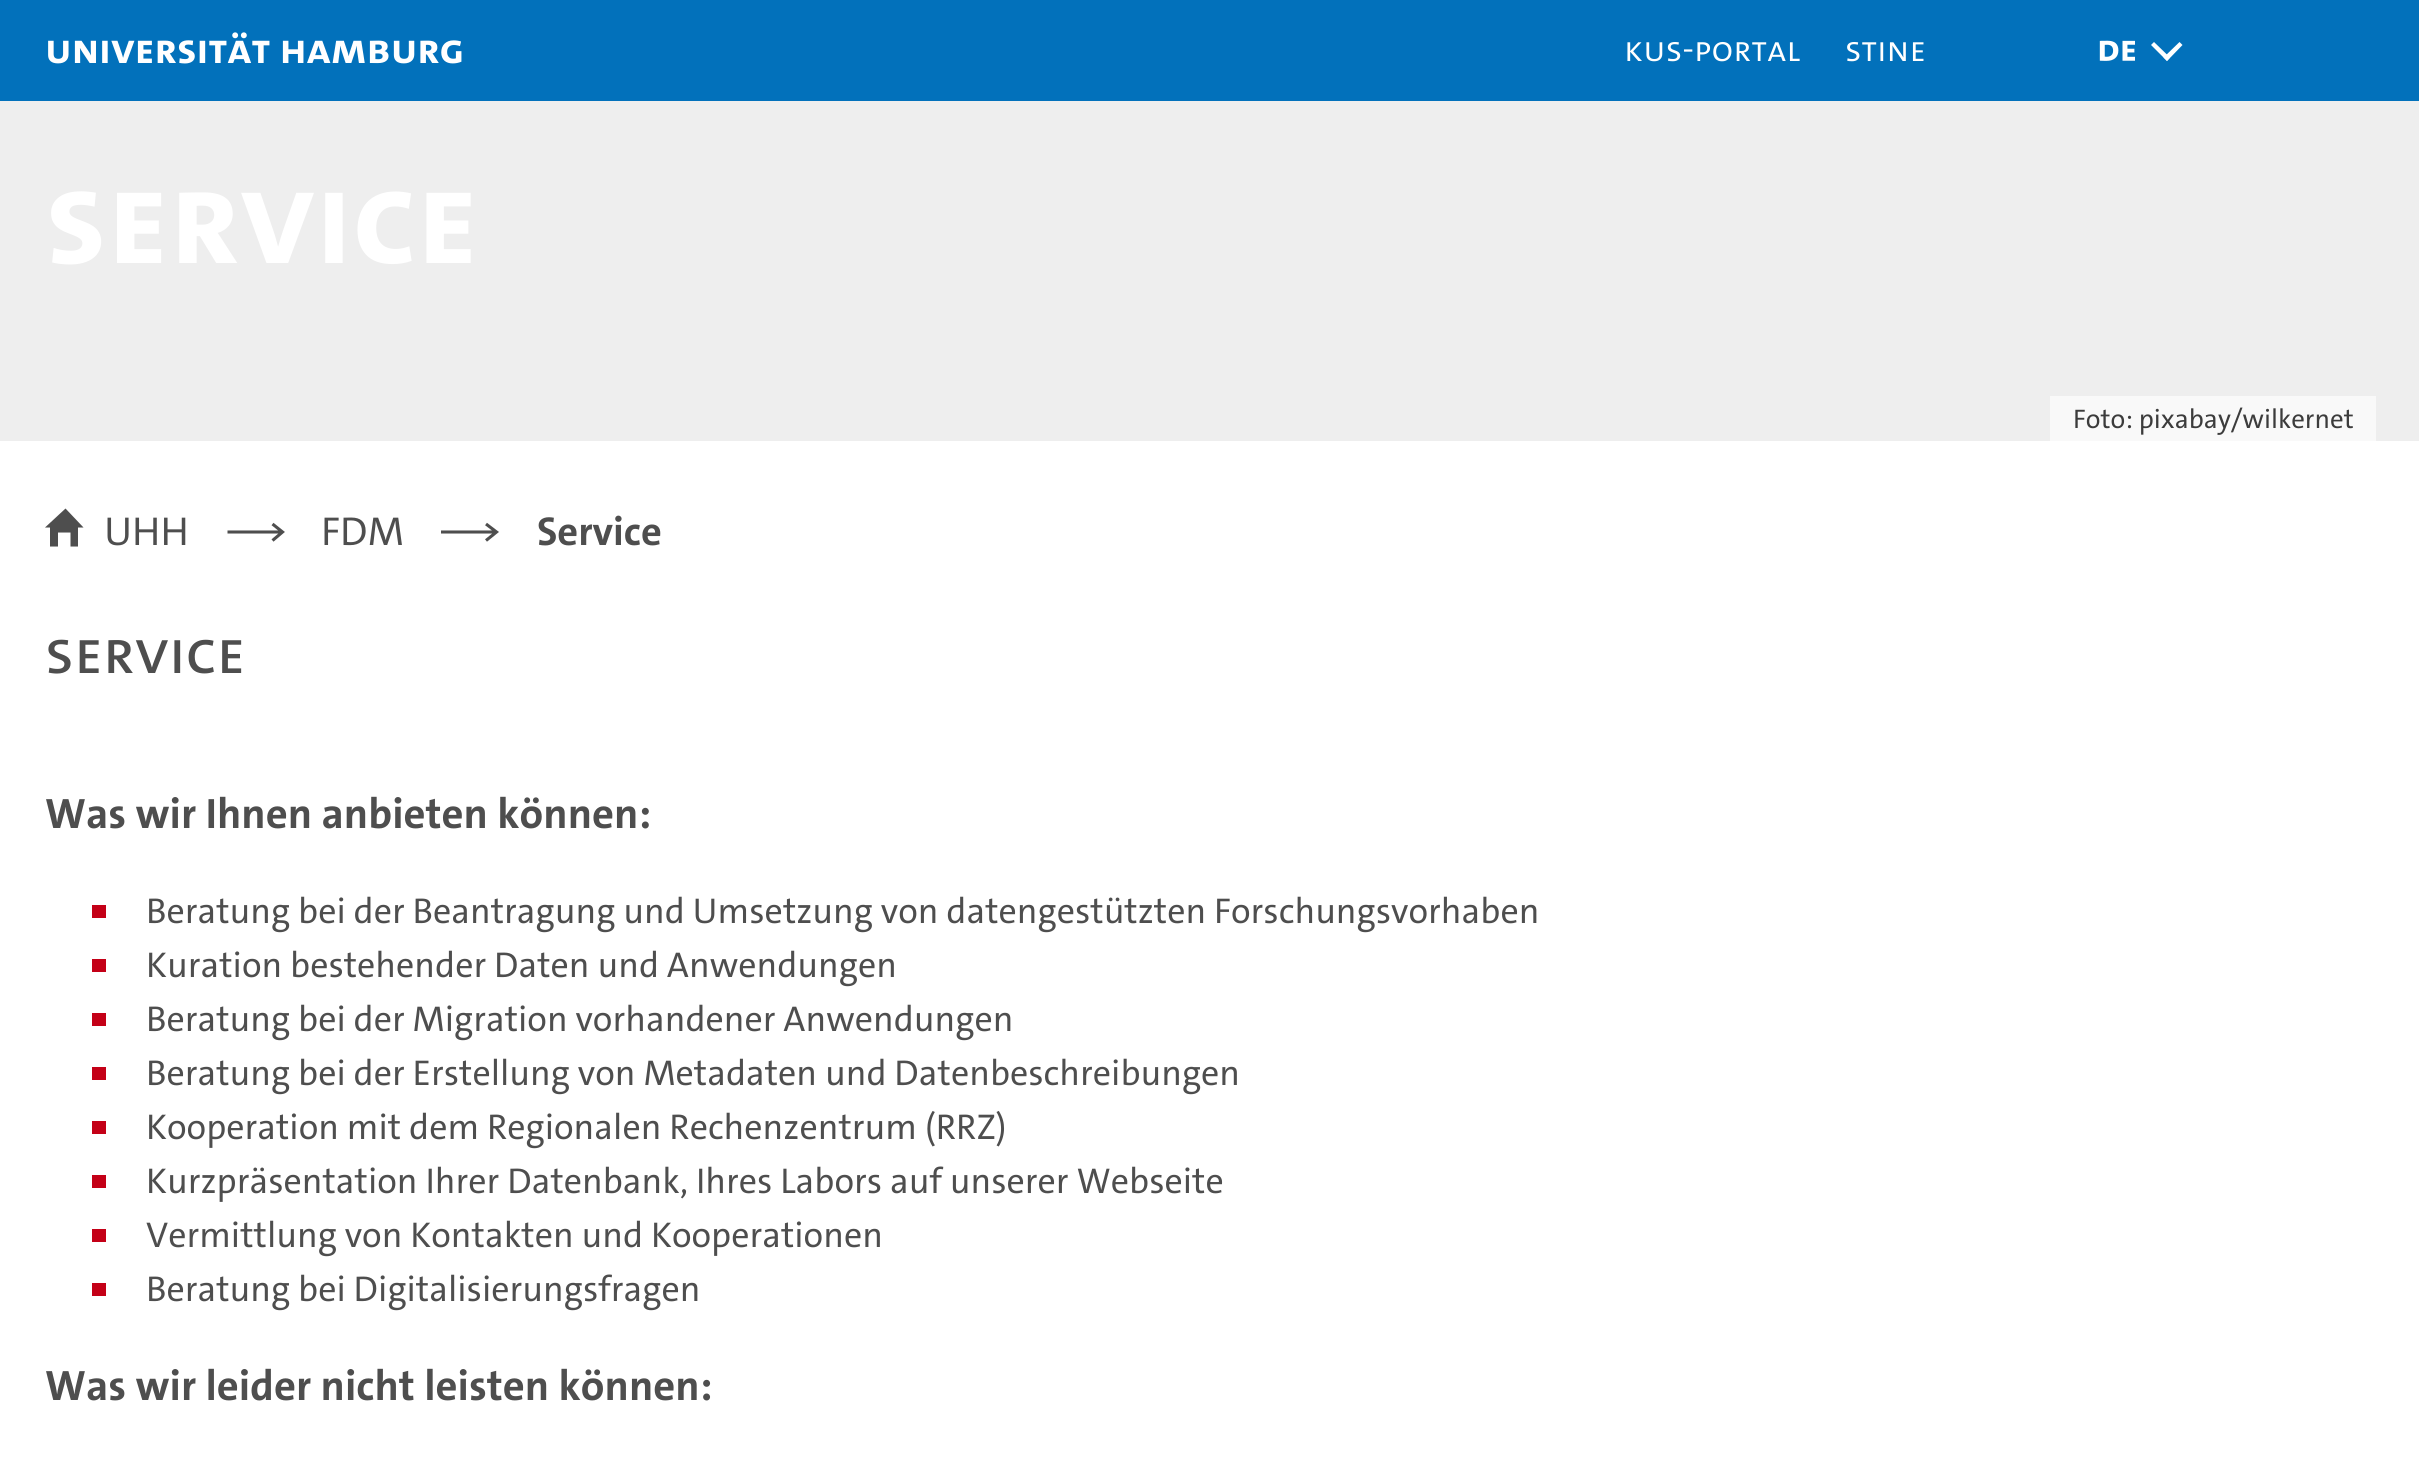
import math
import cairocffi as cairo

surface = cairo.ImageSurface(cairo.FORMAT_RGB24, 2419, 1461)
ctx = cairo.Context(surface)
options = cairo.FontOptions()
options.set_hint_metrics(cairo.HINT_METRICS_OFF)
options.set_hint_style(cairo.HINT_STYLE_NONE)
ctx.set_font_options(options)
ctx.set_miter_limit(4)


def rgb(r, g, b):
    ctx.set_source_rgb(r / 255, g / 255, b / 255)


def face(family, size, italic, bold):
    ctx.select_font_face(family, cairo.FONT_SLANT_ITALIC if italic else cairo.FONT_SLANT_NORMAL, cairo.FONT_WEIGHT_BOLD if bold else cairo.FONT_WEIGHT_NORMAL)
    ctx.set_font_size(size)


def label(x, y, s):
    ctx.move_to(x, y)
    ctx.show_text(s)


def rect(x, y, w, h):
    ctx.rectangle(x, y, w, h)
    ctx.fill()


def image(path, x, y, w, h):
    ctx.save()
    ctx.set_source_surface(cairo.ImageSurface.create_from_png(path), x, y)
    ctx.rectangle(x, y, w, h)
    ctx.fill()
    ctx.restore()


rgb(255, 255, 255)
ctx.paint()
rgb(2, 113, 187)
rect(0, 0, 2419, 101)
face('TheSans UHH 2', 42.75, 0, 1)
rgb(255, 255, 255)
label(45, 63, 'Universität Hamburg')
face('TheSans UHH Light', 36, 0, 0)
label(1624, 61, 'KUS-Portal')
label(1845, 61, 'STiNE')
image('image0.png', 2099, 40, 36, 21)
ctx.new_path()
ctx.move_to(2179.5, 42)
ctx.line_to(2182.5, 45)
ctx.line_to(2167, 61)
ctx.line_to(2163.5, 57.5)
ctx.close_path()
ctx.fill()
ctx.new_path()
ctx.move_to(2154, 42)
ctx.line_to(2170, 57.5)
ctx.line_to(2167, 61)
ctx.line_to(2151, 45)
ctx.close_path()
ctx.fill()
rgb(238, 238, 238)
rect(0, 101, 2419, 340)
face('TheSans UHH 2', 135, 0, 1)
rgb(255, 255, 255)
label(45, 263, 'Service')
rgb(249, 249, 249)
rect(2050, 396, 326, 45)
face('TheSans UHH', 27, 0, 0)
rgb(60, 60, 60)
label(2073, 428, 'Foto: pixabay/wilkernet')
rgb(78, 78, 78)
ctx.set_fill_rule(cairo.FILL_RULE_EVEN_ODD)
ctx.new_path()
ctx.move_to(50, 546.5)
ctx.line_to(58, 546.5)
ctx.line_to(58, 532.5)
ctx.line_to(70.5, 532.5)
ctx.line_to(70.5, 546.5)
ctx.line_to(78, 546.5)
ctx.line_to(78, 527.5)
ctx.line_to(83.5, 527.5)
ctx.line_to(65.5, 508.5)
ctx.line_to(45, 527.5)
ctx.line_to(50, 527.5)
ctx.close_path()
ctx.fill()
face('TheSans UHH', 40.5, 0, 0)
label(104, 545, 'UHH')
ctx.new_path()
ctx.move_to(227.5, 532)
ctx.line_to(281, 532)
ctx.move_to(272.5, 524)
ctx.line_to(282.5, 532)
ctx.line_to(272.5, 540.5)
ctx.set_line_width(3.1)
ctx.stroke()
label(321, 545, 'FDM')
ctx.new_path()
ctx.move_to(441, 532)
ctx.line_to(494.5, 532)
ctx.move_to(486, 524)
ctx.line_to(496.5, 532)
ctx.line_to(486, 540.5)
ctx.stroke()
face('TheSans UHH', 40.5, 0, 1)
label(537, 545, 'Service')
face('TheSans UHH 2', 63, 0, 0)
label(45, 673, 'Service')
face('TheSans UHH', 42.75, 0, 1)
label(45, 828, 'Was wir Ihnen anbieten können:')
rgb(196, 0, 23)
rect(92, 905, 14, 13)
face('TheSans UHH', 36, 0, 0)
rgb(78, 78, 78)
label(146, 923, 'Beratung bei der Beantragung und Umsetzung von datengestützten Forschungsvorhaben')
rgb(196, 0, 23)
rect(92, 959, 14, 13)
rgb(78, 78, 78)
label(146, 977, 'Kuration bestehender Daten und Anwendungen')
rgb(196, 0, 23)
rect(92, 1013, 14, 13)
rgb(78, 78, 78)
label(146, 1031, 'Beratung bei der Migration vorhandener Anwendungen')
rgb(196, 0, 23)
rect(92, 1067, 14, 13)
rgb(78, 78, 78)
label(146, 1085, 'Beratung bei der Erstellung von Metadaten und Datenbeschreibungen')
rgb(196, 0, 23)
rect(92, 1121, 14, 13)
rgb(78, 78, 78)
label(146, 1139, 'Kooperation mit dem Regionalen Rechenzentrum (RRZ)')
rgb(196, 0, 23)
rect(92, 1175, 14, 13)
rgb(78, 78, 78)
label(146, 1193, 'Kurzpräsentation Ihrer Datenbank, Ihres Labors auf unserer Webseite')
rgb(196, 0, 23)
rect(92, 1229, 14, 13)
rgb(78, 78, 78)
label(146, 1247, 'Vermittlung von Kontakten und Kooperationen')
rgb(196, 0, 23)
rect(92, 1283, 14, 13)
rgb(78, 78, 78)
label(146, 1301, 'Beratung bei Digitalisierungsfragen')
face('TheSans UHH', 42.75, 0, 1)
label(45, 1400, 'Was wir leider nicht leisten können:')
surface.write_to_png('render.png')
